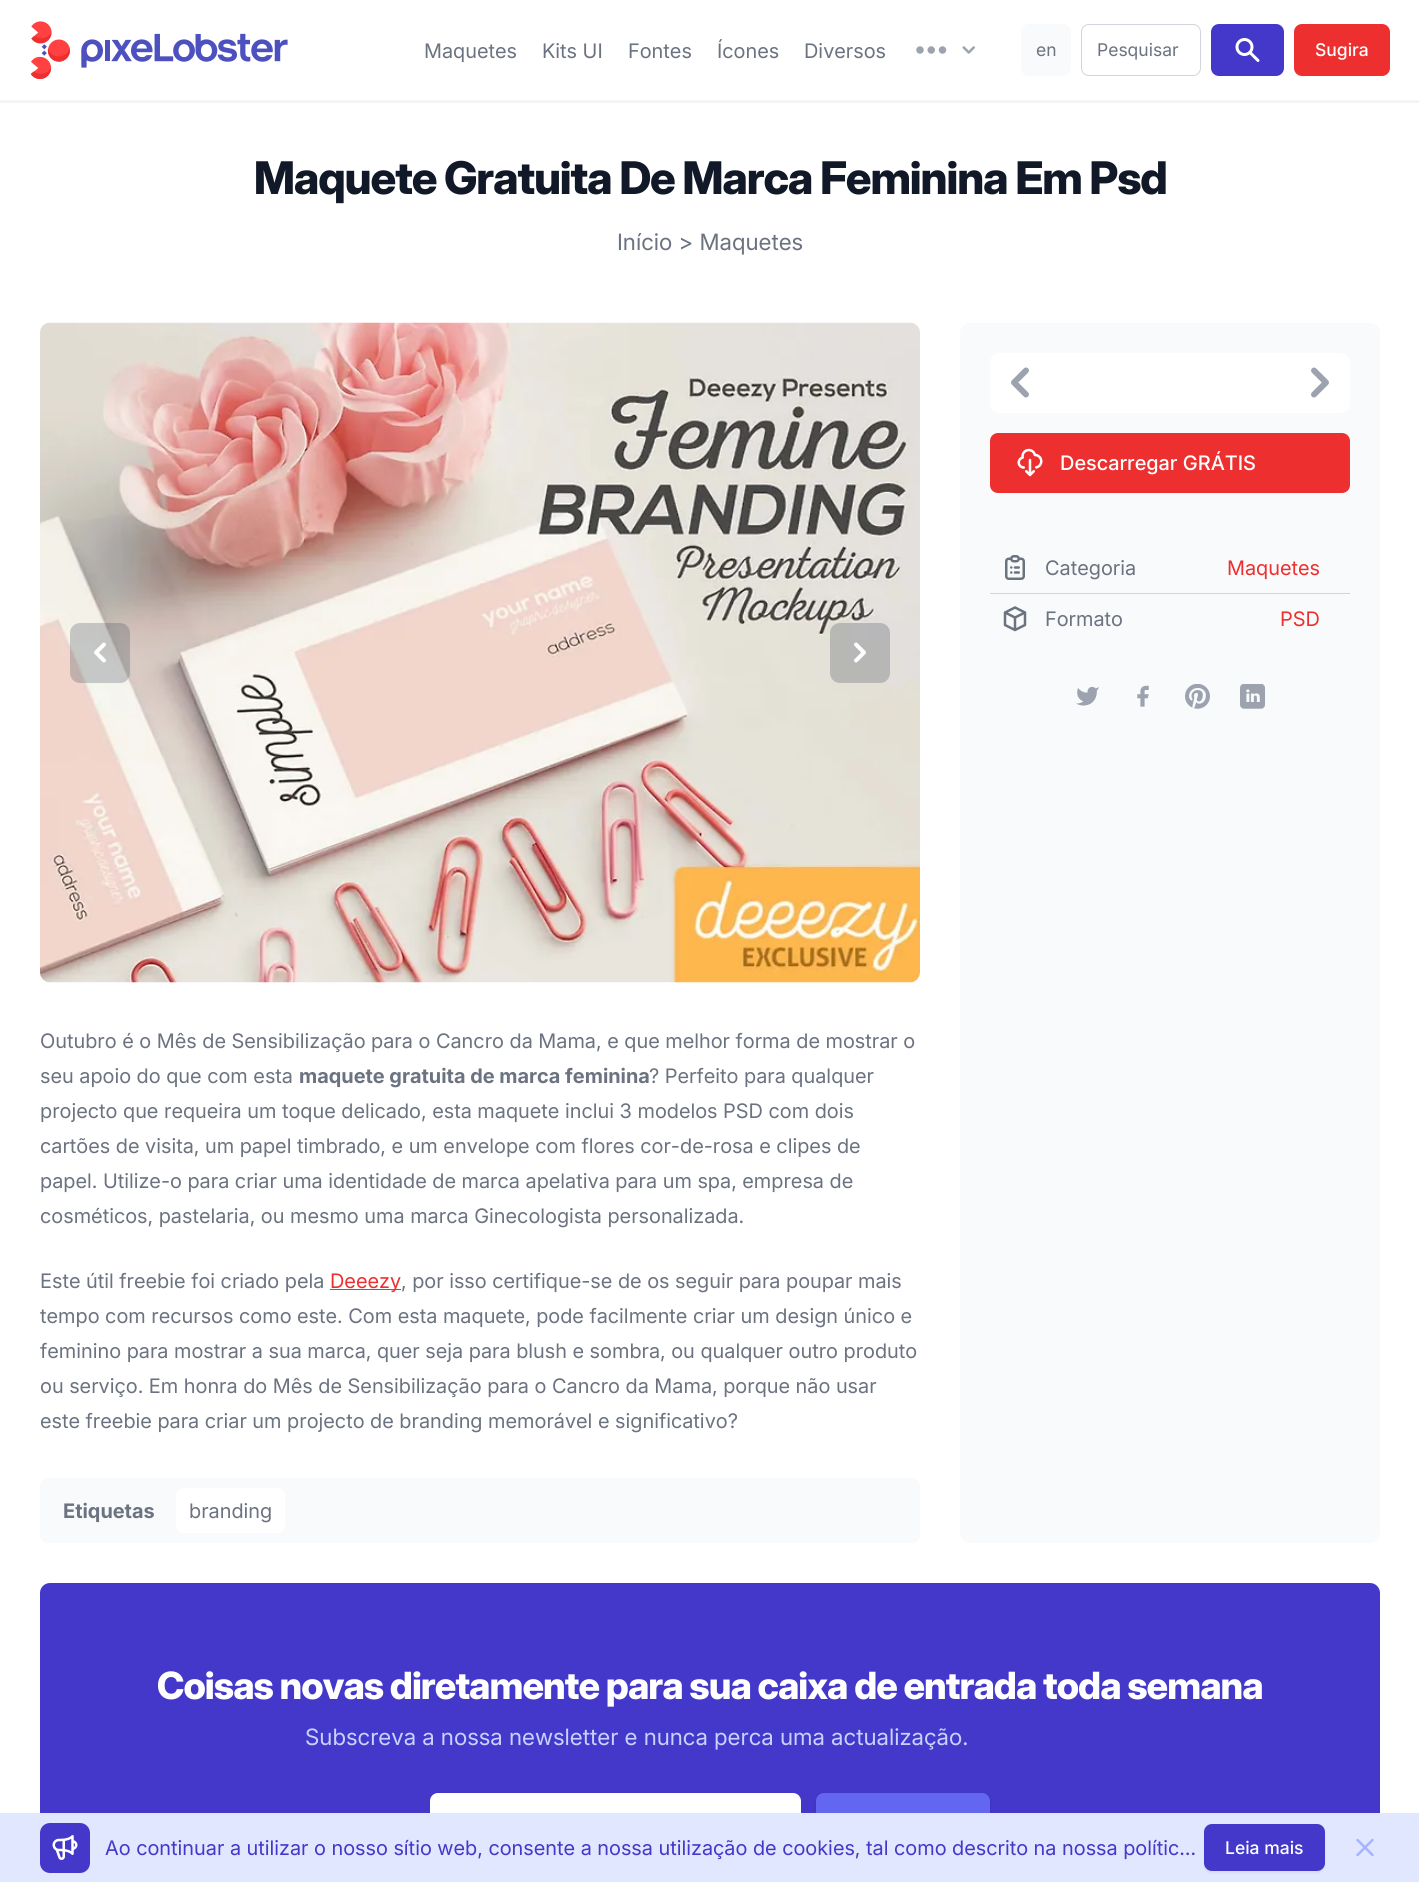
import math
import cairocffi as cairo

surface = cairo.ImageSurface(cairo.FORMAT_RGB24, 1419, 1882)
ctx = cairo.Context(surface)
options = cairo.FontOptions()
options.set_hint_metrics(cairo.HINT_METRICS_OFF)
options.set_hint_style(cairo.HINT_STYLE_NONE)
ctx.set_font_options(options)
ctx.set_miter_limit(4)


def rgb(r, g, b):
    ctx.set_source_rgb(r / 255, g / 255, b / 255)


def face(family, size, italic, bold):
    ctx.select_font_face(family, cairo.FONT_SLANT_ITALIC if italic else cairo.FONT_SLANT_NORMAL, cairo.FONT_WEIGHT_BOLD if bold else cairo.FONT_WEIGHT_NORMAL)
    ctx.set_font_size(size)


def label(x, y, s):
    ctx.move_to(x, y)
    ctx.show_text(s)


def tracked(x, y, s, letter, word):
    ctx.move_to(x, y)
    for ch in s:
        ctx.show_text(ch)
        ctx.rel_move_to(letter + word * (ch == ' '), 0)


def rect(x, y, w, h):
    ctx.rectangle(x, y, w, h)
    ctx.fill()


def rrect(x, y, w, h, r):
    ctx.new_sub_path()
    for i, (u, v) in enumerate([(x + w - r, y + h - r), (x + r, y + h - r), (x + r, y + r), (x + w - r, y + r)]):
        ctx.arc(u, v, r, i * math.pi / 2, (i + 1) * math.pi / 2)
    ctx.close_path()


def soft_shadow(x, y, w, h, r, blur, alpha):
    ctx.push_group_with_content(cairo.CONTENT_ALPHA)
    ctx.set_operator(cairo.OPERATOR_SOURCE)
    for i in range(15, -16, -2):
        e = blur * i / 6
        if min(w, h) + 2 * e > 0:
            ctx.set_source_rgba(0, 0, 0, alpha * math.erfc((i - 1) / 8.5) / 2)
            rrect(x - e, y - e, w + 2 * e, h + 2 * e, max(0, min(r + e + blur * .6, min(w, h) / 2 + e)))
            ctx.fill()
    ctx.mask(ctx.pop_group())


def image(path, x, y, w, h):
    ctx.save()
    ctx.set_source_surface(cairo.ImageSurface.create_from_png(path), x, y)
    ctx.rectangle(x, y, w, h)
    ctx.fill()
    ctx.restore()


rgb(255, 255, 255)
ctx.paint()
rgb(243, 244, 246)
rect(0, 100, 1419, 3)
image('image0.png', 30, 21, 40, 58)
image('image1.png', 81, 33, 207, 35)
face('Inter', 20, 0, 0)
rgb(107, 114, 128)
label(424, 58, 'Maquetes')
label(542, 58, 'Kits UI')
label(628, 58, 'Fontes')
label(717, 58, 'Ícones')
label(804, 58, 'Diversos')
image('image2.png', 916, 46, 31, 8)
image('image3.png', 962, 46, 13, 8)
rgb(249, 250, 251)
rrect(1021, 24, 50, 52, 8)
ctx.fill()
face('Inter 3', 17.5, 0, 0)
rgb(107, 114, 128)
label(1036, 56, 'en')
rrect(1081.5, 24.5, 119, 51, 7.5)
rgb(209, 213, 219)
ctx.set_line_width(1)
ctx.stroke()
rgb(107, 114, 128)
label(1097, 56, 'Pesquisar')
rgb(67, 56, 202)
rrect(1211, 24, 73, 52, 8)
ctx.fill()
image('image4.png', 1235, 38, 25, 24)
rgb(237, 47, 47)
rrect(1294, 24, 96, 52, 8)
ctx.fill()
face('Inter Medium', 17.5, 0, 0)
rgb(255, 255, 255)
label(1315, 56, 'Sugira')
face('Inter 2 ExtraBold', 45, 0, 0)
rgb(17, 24, 39)
tracked(254, 194, 'Maquete Gratuita De Marca Feminina Em Psd', -1.1, 0)
face('Inter 2', 22.5, 0, 0)
rgb(107, 114, 128)
label(617, 250, 'Início > Maquetes')
rgb(249, 250, 251)
rrect(960, 323, 420, 1220, 10)
ctx.fill()
rgb(255, 255, 255)
rrect(990, 353, 360, 60, 10)
ctx.fill()
image('image5.png', 1011, 367, 18, 31)
image('image6.png', 1311, 367, 18, 31)
rgb(237, 47, 47)
rrect(990, 433, 360, 60, 8)
ctx.fill()
image('image7.png', 1017, 448, 26, 29)
face('Inter 2 Medium', 20, 0, 0)
rgb(255, 255, 255)
label(1060, 470, 'Descarregar GRÁTIS')
image('image8.png', 1005, 555, 20, 25)
face('Inter', 20, 0, 0)
rgb(107, 114, 128)
label(1045, 575, 'Categoria')
rgb(237, 47, 47)
label(1227, 575, 'Maquetes')
rgb(209, 213, 219)
rect(990, 593, 360, 1)
image('image9.png', 1003, 606, 24, 26)
rgb(107, 114, 128)
label(1045, 626, 'Formato')
rgb(237, 47, 47)
label(1280, 626, 'PSD')
image('image10.png', 1076, 686, 23, 20)
image('image11.png', 1137, 685, 12, 22)
image('image12.png', 1185, 684, 25, 25)
image('image13.png', 1240, 684, 25, 25)
image('image14.png', 40, 322, 880, 661)
ctx.set_source_rgba(0.216, 0.255, 0.318, 0.25)
rrect(70, 623, 60, 60, 10)
ctx.fill()
image('image15.png', 94, 642, 12, 21)
rrect(830, 623, 60, 60, 10)
ctx.fill()
image('image16.png', 854, 642, 12, 21)
rgb(107, 114, 128)
label(40, 1048, 'Outubro é o Mês de Sensibilização para o Cancro da Mama, e que melhor forma de mostrar o')
label(40, 1083, 'seu apoio do que com esta')
face('Inter', 20, 0, 1)
label(299, 1083, 'maquete gratuita de marca feminina')
face('Inter', 20, 0, 0)
label(649, 1083, '? Perfeito para qualquer')
label(40, 1118, 'projecto que requeira um toque delicado, esta maquete inclui 3 modelos PSD com dois')
label(40, 1153, 'cartões de visita, um papel timbrado, e um envelope com flores cor-de-rosa e clipes de')
label(40, 1188, 'papel. Utilize-o para criar uma identidade de marca apelativa para um spa, empresa de')
label(40, 1223, 'cosméticos, pastelaria, ou mesmo uma marca Ginecologista personalizada.')
label(40, 1288, 'Este útil freebie foi criado pela')
rgb(237, 47, 47)
rect(330, 1289, 71, 1)
label(330, 1288, 'Deeezy')
rgb(107, 114, 128)
label(401, 1288, ', por isso certifique-se de os seguir para poupar mais')
label(40, 1323, 'tempo com recursos como este. Com esta maquete, pode facilmente criar um design único e')
label(40, 1358, 'feminino para mostrar a sua marca, quer seja para blush e sombra, ou qualquer outro produto')
label(40, 1393, 'ou serviço. Em honra do Mês de Sensibilização para o Cancro da Mama, porque não usar')
label(40, 1428, 'este freebie para criar um projecto de branding memorável e significativo?')
rgb(249, 250, 251)
rrect(40, 1478, 880, 65, 8)
ctx.fill()
face('Inter', 20, 0, 1)
rgb(107, 114, 128)
label(63, 1518, 'Etiquetas')
rgb(255, 255, 255)
rrect(176, 1488, 109, 45, 8)
ctx.fill()
face('Inter', 20, 0, 0)
rgb(107, 114, 128)
label(189, 1518, 'branding')
rgb(67, 56, 202)
rrect(40, 1583, 1340, 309, 10)
ctx.fill()
face('Inter ExtraBold', 37.5, 0, 0)
rgb(255, 255, 255)
tracked(157, 1699, 'Coisas novas diretamente para sua caixa de entrada toda semana', -0.95, 0)
face('Inter 2', 22.5, 0, 0)
rgb(199, 210, 254)
label(305, 1745, 'Subscreva a nossa newsletter e nunca perca uma actualização.')
rgb(255, 255, 255)
rrect(430, 1793, 371, 62, 8)
ctx.fill()
rgb(0, 0, 0)
soft_shadow(816, 1794, 174, 62, 8, 2, 0.1)
rgb(99, 102, 241)
rrect(816, 1793, 174, 62, 8)
ctx.fill()
rgb(224, 231, 255)
rect(0, 1813, 1419, 69)
rgb(67, 56, 202)
rrect(40, 1823, 50, 50, 10)
ctx.fill()
image('image17.png', 52, 1835, 26, 25)
face('Inter', 20, 0, 0)
label(105, 1855, 'Ao continuar a utilizar o nosso sítio web, consente a nossa utilização de cookies, tal como descrito na nossa polític…')
rgb(0, 0, 0)
soft_shadow(1204, 1825, 121, 48, 8, 1, 0.05)
rgb(67, 56, 202)
rrect(1204, 1824, 121, 47, 8)
ctx.fill()
face('Inter Medium', 17.5, 0, 0)
rgb(255, 255, 255)
label(1225, 1854, 'Leia mais')
ctx.new_path()
ctx.move_to(1357.5, 1855)
ctx.line_to(1372.5, 1840)
ctx.move_to(1357.5, 1840)
ctx.line_to(1372.5, 1855)
rgb(165, 180, 252)
ctx.set_line_width(2.5)
ctx.set_line_cap(cairo.LINE_CAP_ROUND)
ctx.set_line_join(cairo.LINE_JOIN_ROUND)
ctx.stroke()
surface.write_to_png('render.png')
